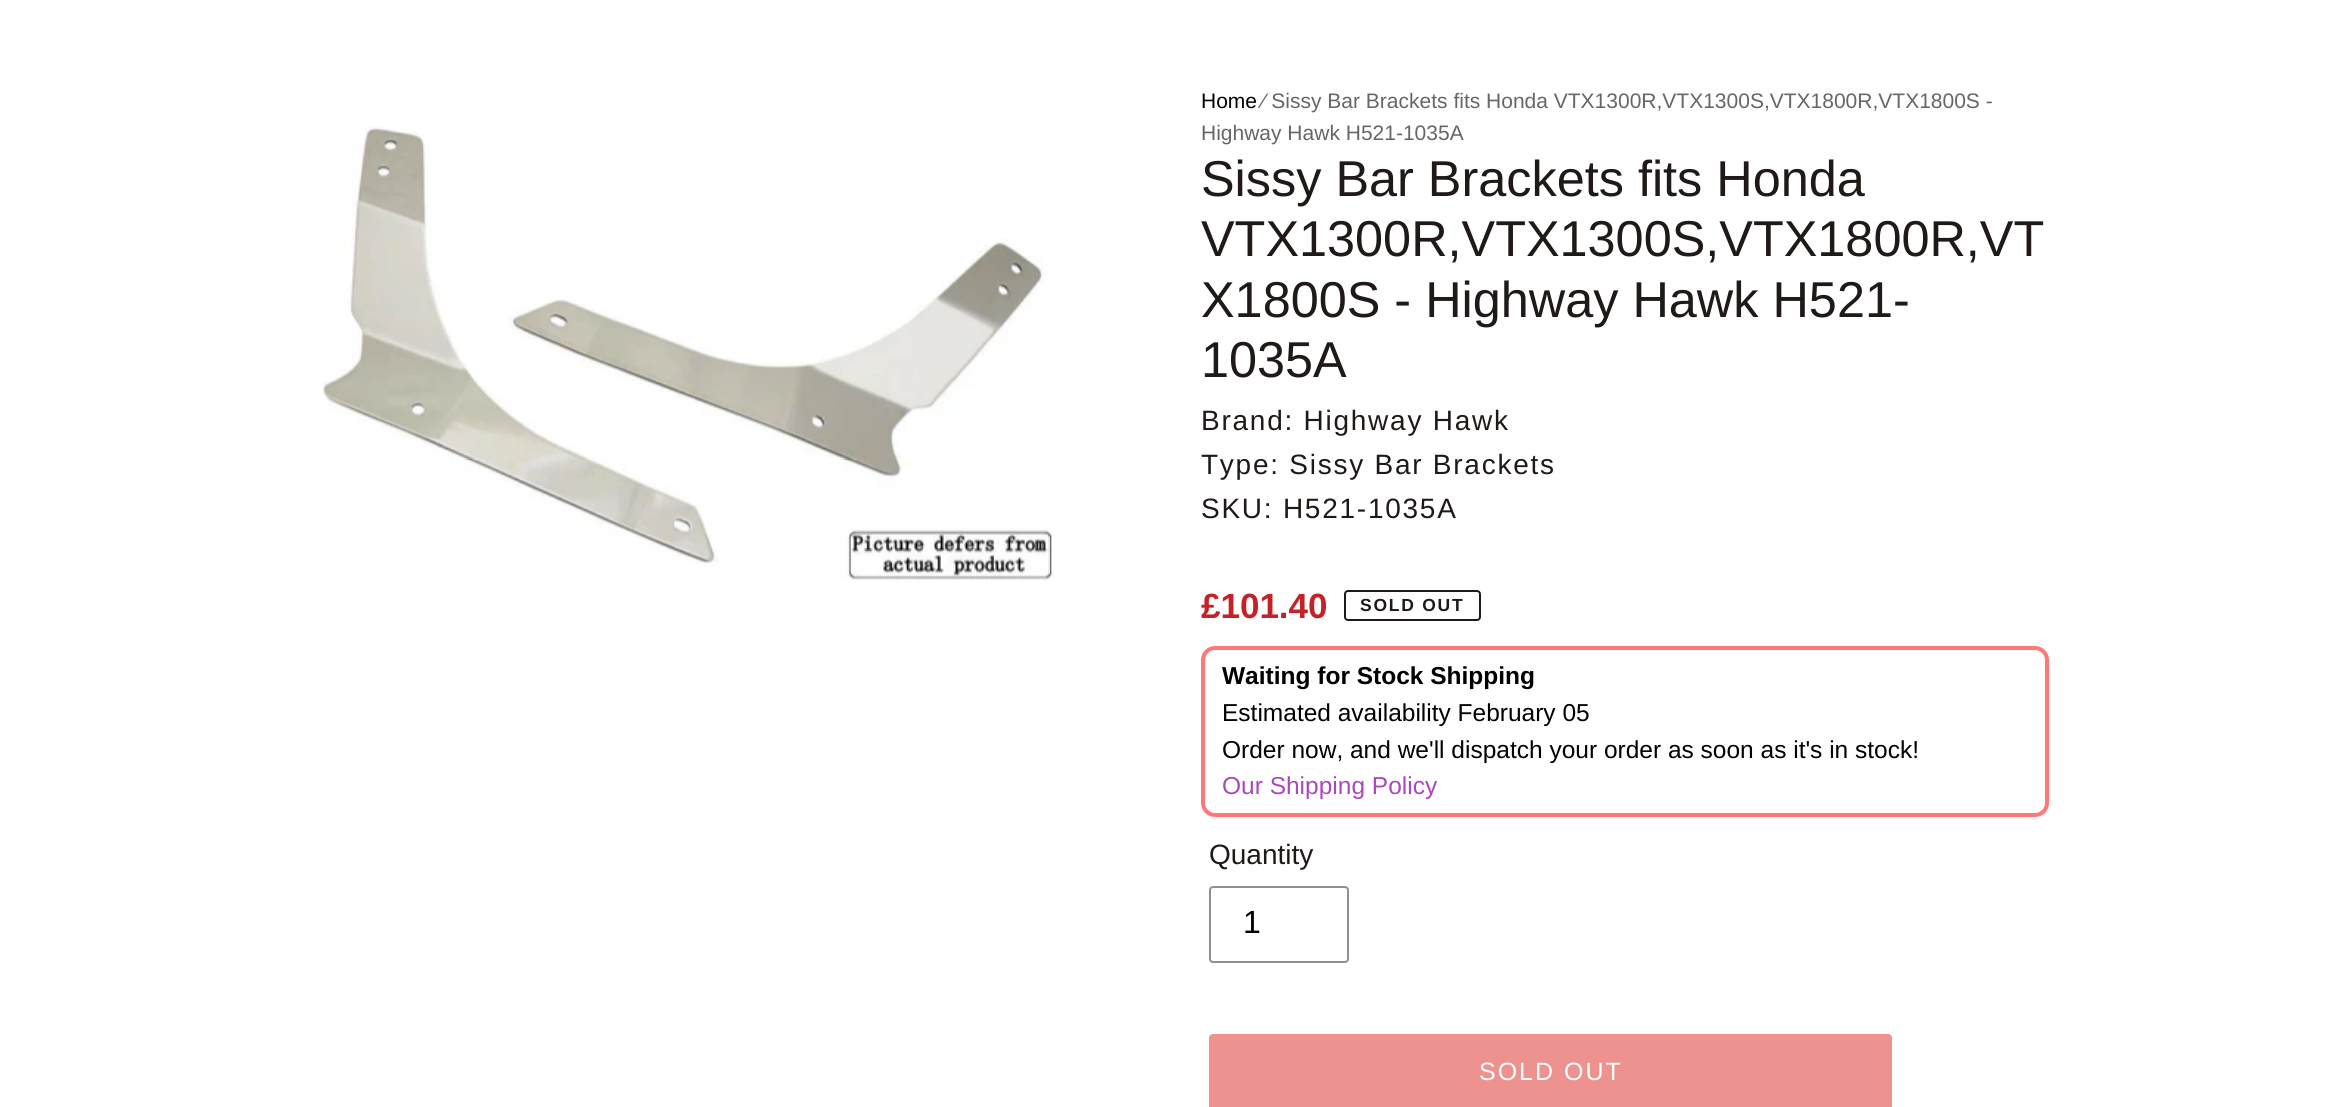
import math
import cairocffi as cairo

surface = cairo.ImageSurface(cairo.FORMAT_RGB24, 2347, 1107)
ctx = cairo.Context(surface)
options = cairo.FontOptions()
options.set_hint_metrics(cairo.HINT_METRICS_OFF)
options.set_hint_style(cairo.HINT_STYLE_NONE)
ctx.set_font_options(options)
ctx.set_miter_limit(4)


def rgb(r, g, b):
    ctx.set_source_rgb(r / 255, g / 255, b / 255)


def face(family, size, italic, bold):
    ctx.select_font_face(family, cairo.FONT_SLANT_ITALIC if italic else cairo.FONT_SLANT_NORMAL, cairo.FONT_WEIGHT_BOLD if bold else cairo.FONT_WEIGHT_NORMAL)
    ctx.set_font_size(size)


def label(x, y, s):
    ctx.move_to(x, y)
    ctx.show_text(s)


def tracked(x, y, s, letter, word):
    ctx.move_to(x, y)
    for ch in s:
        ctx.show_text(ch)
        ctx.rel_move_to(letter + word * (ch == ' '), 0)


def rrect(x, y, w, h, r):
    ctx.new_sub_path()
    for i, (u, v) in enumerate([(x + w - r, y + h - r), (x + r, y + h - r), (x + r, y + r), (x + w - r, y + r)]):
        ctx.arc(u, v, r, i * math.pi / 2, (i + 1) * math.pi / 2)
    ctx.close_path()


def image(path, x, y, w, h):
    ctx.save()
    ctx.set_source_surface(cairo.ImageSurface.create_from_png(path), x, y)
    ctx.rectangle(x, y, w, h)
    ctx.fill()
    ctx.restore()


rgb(255, 255, 255)
ctx.paint()
image('image0.png', 322, 127, 730, 454)
face('Liberation Sans', 21, 0, 0)
rgb(0, 0, 0)
label(1201, 108, 'Home')
rgb(102, 102, 102)
label(1262, 108, '∕ Sissy Bar Brackets fits Honda VTX1300R,VTX1300S,VTX1800R,VTX1800S -')
label(1201, 140, 'Highway Hawk H521-1035A')
face('Liberation Sans', 50.4, 0, 0)
rgb(31, 26, 23)
label(1201, 196, 'Sissy Bar Brackets fits Honda')
label(1201, 256, 'VTX1300R,VTX1300S,VTX1800R,VT')
label(1201, 317, 'X1800S - Highway Hawk H521-')
label(1201, 377, '1035A')
face('Liberation Sans', 28, 0, 0)
tracked(1201, 430, 'Brand: Highway Hawk', 1.75, 0)
tracked(1201, 474, 'Type: Sissy Bar Brackets', 1.75, 0)
tracked(1201, 518, 'SKU: H521-1035A', 1.75, 0)
face('Liberation Sans', 35, 0, 1)
rgb(196, 34, 41)
label(1201, 618, '£101.40')
rrect(1345, 591, 135, 29, 3)
rgb(31, 26, 23)
ctx.stroke()
face('Liberation Sans', 17.5, 0, 1)
tracked(1360, 611, 'SOLD OUT', 1.75, 0)
rrect(1203, 648, 844, 167, 12)
rgb(254, 120, 120)
ctx.set_line_width(4)
ctx.stroke()
face('Liberation Sans', 24.5, 0, 1)
rgb(0, 0, 0)
label(1222, 684, 'Waiting for Stock Shipping')
face('Liberation Sans', 24.5, 0, 0)
label(1222, 721, 'Estimated availability February 05')
label(1222, 758, 'Order now, and we\'ll dispatch your order as soon as it\'s in stock!')
rgb(171, 71, 188)
label(1222, 794, 'Our Shipping Policy')
face('Liberation Sans', 28, 0, 0)
rgb(31, 26, 23)
label(1209, 864, 'Quantity')
rrect(1210, 887, 138, 75, 3)
rgb(144, 144, 144)
ctx.set_line_width(2)
ctx.stroke()
face('Liberation Sans', 32, 0, 0)
rgb(0, 0, 0)
label(1243, 933, '1')
rgb(237, 146, 142)
rrect(1209, 1034, 683, 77, 4)
ctx.fill()
face('Liberation Sans', 25, 0, 0)
rgb(255, 255, 255)
tracked(1479, 1080, 'SOLD OUT', 2, 0)
surface.write_to_png('render.png')
